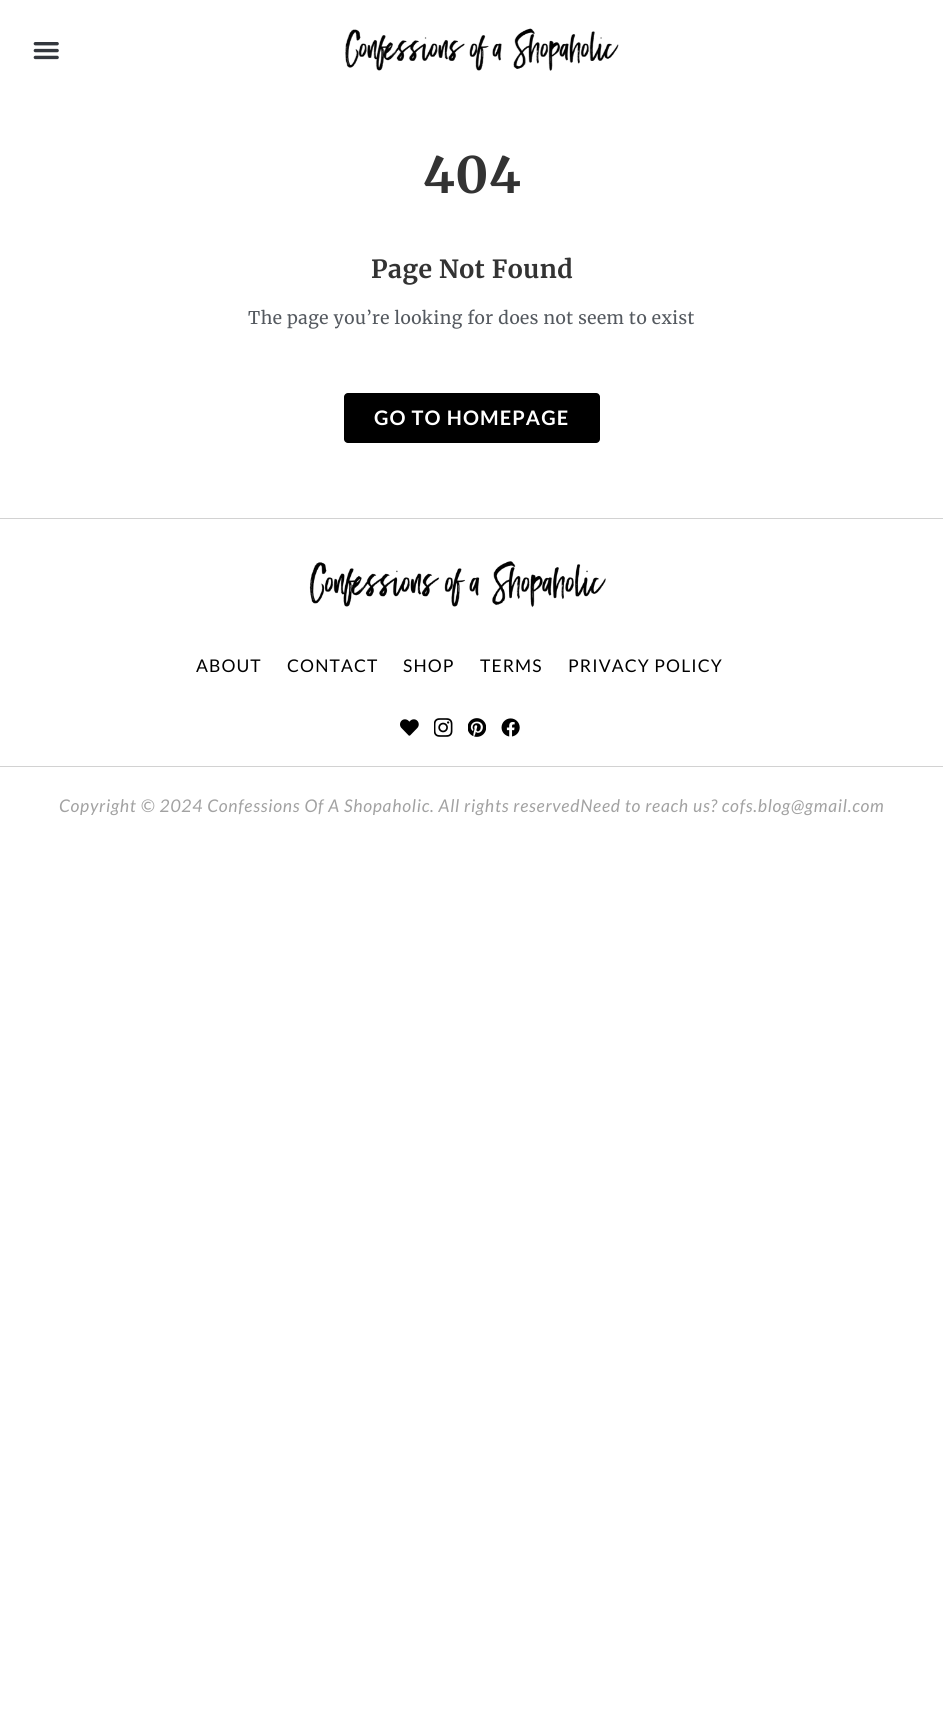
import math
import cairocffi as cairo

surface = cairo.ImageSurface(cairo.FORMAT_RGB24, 943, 1719)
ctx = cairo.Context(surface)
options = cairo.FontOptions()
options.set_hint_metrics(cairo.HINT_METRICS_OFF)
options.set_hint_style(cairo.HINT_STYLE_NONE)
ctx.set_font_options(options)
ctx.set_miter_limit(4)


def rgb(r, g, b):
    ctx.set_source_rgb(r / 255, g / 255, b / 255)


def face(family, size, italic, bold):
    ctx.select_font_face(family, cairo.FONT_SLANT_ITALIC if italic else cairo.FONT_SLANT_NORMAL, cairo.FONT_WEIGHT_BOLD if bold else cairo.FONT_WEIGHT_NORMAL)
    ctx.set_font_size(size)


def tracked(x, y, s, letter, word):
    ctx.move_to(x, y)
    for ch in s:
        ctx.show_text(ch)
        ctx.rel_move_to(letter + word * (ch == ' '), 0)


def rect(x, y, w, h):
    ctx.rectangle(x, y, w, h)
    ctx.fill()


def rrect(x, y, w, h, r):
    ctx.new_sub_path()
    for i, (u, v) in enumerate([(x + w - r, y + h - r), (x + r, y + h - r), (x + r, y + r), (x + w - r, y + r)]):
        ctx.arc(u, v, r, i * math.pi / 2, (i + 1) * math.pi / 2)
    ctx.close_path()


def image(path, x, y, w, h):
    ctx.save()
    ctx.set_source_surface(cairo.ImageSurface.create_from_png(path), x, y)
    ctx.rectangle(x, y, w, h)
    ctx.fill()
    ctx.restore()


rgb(255, 255, 255)
ctx.paint()
image('image0.png', 33, 42, 26, 18)
image('image1.png', 345, 28, 274, 43)
face('Merriweather', 50, 0, 1)
rgb(51, 51, 51)
tracked(423, 193, '404', 0.5, 0)
face('Merriweather', 25, 0, 1)
tracked(371, 278, 'Page Not Found', 0.5, 0)
face('Merriweather', 17.5, 0, 0)
rgb(84, 89, 95)
tracked(248, 324, 'The page you’re looking for does not seem to exist', 0.5, 0)
rgb(0, 0, 0)
rrect(344, 393, 256, 50, 4)
ctx.fill()
face('Lato', 20, 0, 1)
rgb(255, 255, 255)
tracked(374, 425, 'GO TO HOMEPAGE', 1.1, 0)
rgb(210, 210, 210)
rect(0, 518, 943, 1)
rect(0, 766, 943, 1)
image('image2.png', 309, 561, 297, 47)
face('Lato', 17.5, 0, 0)
rgb(0, 0, 0)
tracked(196, 672, 'ABOUT', 1.1, 0)
tracked(287, 672, 'CONTACT', 1.1, 0)
tracked(403, 672, 'SHOP', 1.1, 0)
tracked(480, 672, 'TERMS', 1.1, 0)
tracked(568, 672, 'PRIVACY POLICY', 1.1, 0)
image('image3.png', 400, 719, 19, 17)
image('image4.png', 434, 718, 19, 19)
image('image5.png', 468, 718, 18, 19)
image('image6.png', 501, 718, 19, 19)
face('Lato', 17.5, 1, 0)
rgb(162, 162, 162)
tracked(59, 812, 'Copyright © 2024 Confessions Of A Shopaholic. All rights reservedNeed to reach us? cofs.blog@gmail.com', 0.75, 0)
surface.write_to_png('render.png')
